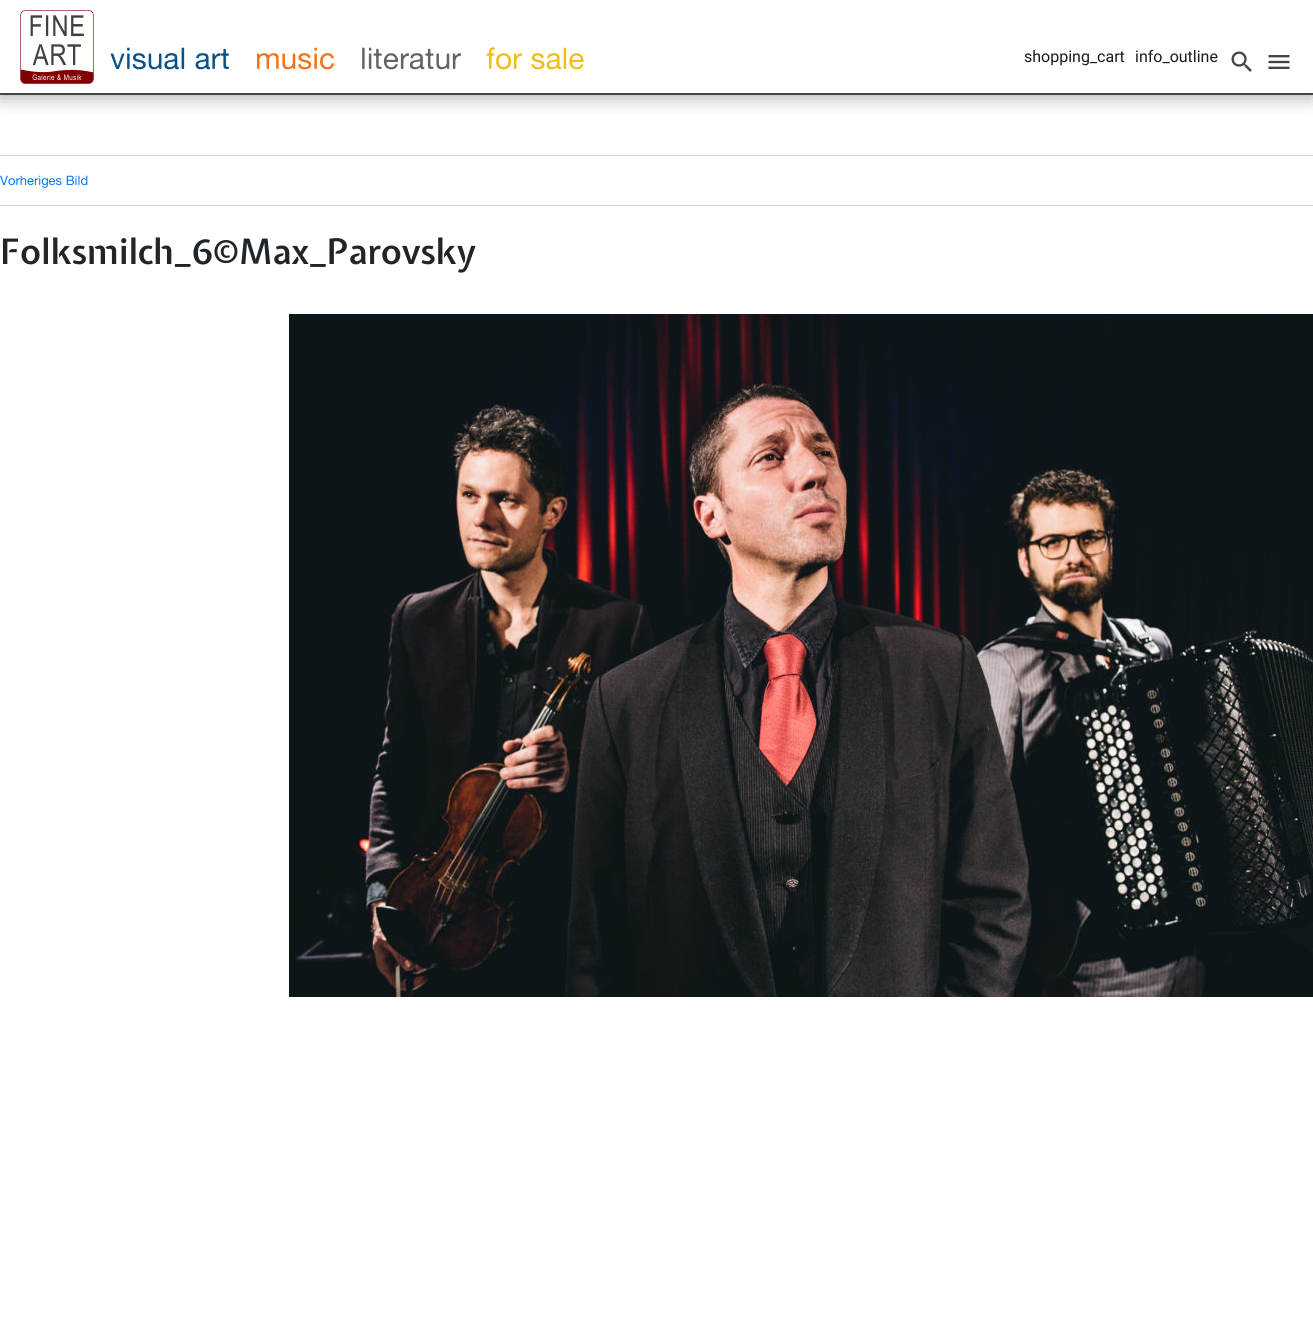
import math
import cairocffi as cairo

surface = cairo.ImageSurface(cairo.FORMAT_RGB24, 1313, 1340)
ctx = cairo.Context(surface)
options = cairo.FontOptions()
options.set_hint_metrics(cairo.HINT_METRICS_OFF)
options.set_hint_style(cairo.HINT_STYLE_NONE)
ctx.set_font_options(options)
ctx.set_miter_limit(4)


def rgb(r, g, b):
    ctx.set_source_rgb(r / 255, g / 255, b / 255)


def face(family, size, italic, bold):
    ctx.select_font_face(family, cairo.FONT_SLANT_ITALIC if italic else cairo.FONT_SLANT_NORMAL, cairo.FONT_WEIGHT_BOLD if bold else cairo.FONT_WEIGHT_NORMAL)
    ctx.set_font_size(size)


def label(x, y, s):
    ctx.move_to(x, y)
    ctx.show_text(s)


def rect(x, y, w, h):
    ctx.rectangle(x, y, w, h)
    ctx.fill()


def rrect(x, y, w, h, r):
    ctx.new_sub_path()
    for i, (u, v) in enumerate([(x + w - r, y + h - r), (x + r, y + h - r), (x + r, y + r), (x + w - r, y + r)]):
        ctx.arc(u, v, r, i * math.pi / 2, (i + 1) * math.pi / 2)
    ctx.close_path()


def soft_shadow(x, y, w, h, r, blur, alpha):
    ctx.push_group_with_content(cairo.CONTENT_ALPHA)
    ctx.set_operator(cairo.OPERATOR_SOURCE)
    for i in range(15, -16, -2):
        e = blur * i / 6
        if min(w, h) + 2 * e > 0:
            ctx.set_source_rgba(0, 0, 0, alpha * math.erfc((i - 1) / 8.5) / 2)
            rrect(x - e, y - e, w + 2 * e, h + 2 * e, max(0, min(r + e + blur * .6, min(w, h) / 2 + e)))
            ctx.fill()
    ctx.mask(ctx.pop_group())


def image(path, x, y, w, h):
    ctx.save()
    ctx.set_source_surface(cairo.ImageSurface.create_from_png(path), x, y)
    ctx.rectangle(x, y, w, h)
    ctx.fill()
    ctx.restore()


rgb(255, 255, 255)
ctx.paint()
ctx.save()
ctx.rectangle(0, 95, 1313, 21)
ctx.clip()
rgb(154, 153, 153)
soft_shadow(0, -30, 1313, 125, 0, 10, 1)
ctx.restore()
rgb(68, 68, 68)
rect(0, 93, 1313, 2)
image('image0.png', 20, 10, 74, 74)
face('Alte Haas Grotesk', 30, 0, 0)
rgb(10, 82, 138)
label(110, 69, 'visual art')
rgb(244, 114, 22)
label(255, 69, 'music')
rgb(101, 99, 99)
label(360, 69, 'literatur')
rgb(244, 188, 22)
label(486, 69, 'for sale')
face('Roboto', 16, 0, 0)
rgb(26, 26, 26)
label(1024, 62, 'shopping_cart')
label(1135, 62, 'info_outline')
image('image1.png', 1231, 51, 21, 21)
image('image2.png', 1268, 55, 22, 14)
rgb(209, 209, 209)
rect(0, 155, 1313, 1)
rect(0, 205, 1313, 1)
face('Alte Haas Grotesk', 13, 0, 0)
rgb(0, 123, 255)
label(0, 185, 'Vorheriges Bild')
face('Expletus Sans SemiBold', 35, 0, 0)
rgb(33, 37, 41)
label(0, 264, 'Folksmilch_6©Max_Parovsky')
image('image3.png', 289, 314, 1024, 683)
surface.write_to_png('render.png')
